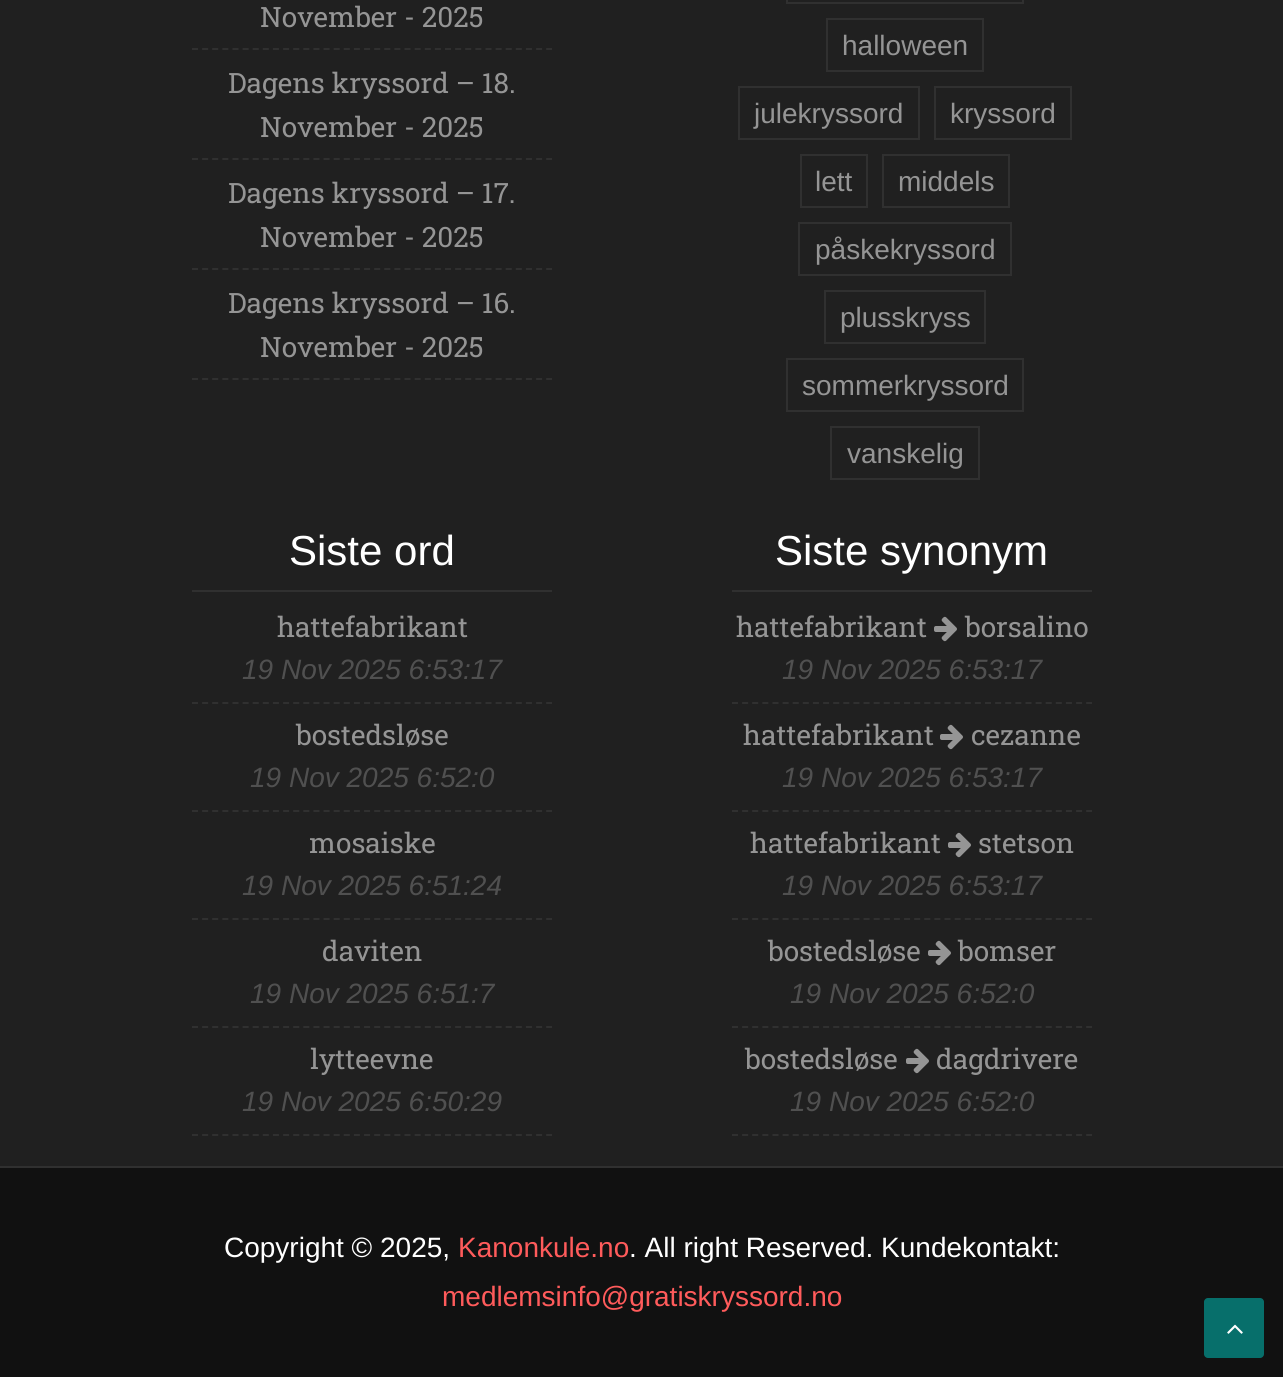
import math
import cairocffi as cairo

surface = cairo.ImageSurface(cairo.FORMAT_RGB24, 1283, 1377)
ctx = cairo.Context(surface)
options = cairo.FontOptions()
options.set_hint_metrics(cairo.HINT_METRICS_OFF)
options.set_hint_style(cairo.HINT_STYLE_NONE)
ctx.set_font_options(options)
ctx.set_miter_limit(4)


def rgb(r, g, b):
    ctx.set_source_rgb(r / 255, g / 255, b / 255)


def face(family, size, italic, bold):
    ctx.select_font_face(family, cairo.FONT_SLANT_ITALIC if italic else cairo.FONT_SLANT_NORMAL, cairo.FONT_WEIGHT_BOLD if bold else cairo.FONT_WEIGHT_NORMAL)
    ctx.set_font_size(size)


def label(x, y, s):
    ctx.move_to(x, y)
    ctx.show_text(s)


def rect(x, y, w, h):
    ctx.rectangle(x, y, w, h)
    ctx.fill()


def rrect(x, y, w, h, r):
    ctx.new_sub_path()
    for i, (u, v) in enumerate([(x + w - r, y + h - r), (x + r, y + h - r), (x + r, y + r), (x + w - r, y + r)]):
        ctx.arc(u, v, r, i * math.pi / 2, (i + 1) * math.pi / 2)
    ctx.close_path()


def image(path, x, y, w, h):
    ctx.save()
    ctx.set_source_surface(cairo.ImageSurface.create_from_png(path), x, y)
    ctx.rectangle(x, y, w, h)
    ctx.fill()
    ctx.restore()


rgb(32, 32, 32)
ctx.paint()
ctx.new_path()
ctx.move_to(192, 49)
ctx.line_to(552, 49)
rgb(48, 48, 48)
ctx.set_dash([6, 4.12])
ctx.stroke()
face('Roboto Slab', 28, 0, 0)
rgb(149, 149, 149)
label(260, 27, 'November - 2025')
ctx.new_path()
ctx.move_to(192, 159)
ctx.line_to(552, 159)
rgb(48, 48, 48)
ctx.stroke()
rgb(149, 149, 149)
label(228, 93, 'Dagens kryssord – 18.')
label(260, 137, 'November - 2025')
ctx.new_path()
ctx.move_to(192, 269)
ctx.line_to(552, 269)
rgb(48, 48, 48)
ctx.stroke()
rgb(149, 149, 149)
label(228, 203, 'Dagens kryssord – 17.')
label(260, 247, 'November - 2025')
ctx.new_path()
ctx.move_to(192, 379)
ctx.line_to(552, 379)
rgb(48, 48, 48)
ctx.stroke()
rgb(149, 149, 149)
label(228, 313, 'Dagens kryssord – 16.')
label(260, 357, 'November - 2025')
ctx.rectangle(787, -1, 236, 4)
rgb(48, 48, 48)
ctx.set_dash([])
ctx.stroke()
ctx.rectangle(827, 19, 156, 52)
ctx.stroke()
face('Liberation Sans', 28, 0, 0)
rgb(149, 149, 149)
label(842, 55, 'halloween')
ctx.rectangle(739, 87, 180, 52)
rgb(48, 48, 48)
ctx.stroke()
rgb(149, 149, 149)
label(754, 123, 'julekryssord')
ctx.rectangle(935, 87, 136, 52)
rgb(48, 48, 48)
ctx.stroke()
rgb(149, 149, 149)
label(950, 123, 'kryssord')
ctx.rectangle(801, 155, 66, 52)
rgb(48, 48, 48)
ctx.stroke()
rgb(149, 149, 149)
label(815, 191, 'lett')
ctx.rectangle(883, 155, 126, 52)
rgb(48, 48, 48)
ctx.stroke()
rgb(149, 149, 149)
label(898, 191, 'middels')
ctx.rectangle(799, 223, 212, 52)
rgb(48, 48, 48)
ctx.stroke()
rgb(149, 149, 149)
label(815, 259, 'påskekryssord')
ctx.rectangle(825, 291, 160, 52)
rgb(48, 48, 48)
ctx.stroke()
rgb(149, 149, 149)
label(840, 327, 'plusskryss')
ctx.rectangle(787, 359, 236, 52)
rgb(48, 48, 48)
ctx.stroke()
rgb(149, 149, 149)
label(802, 395, 'sommerkryssord')
ctx.rectangle(831, 427, 148, 52)
rgb(48, 48, 48)
ctx.stroke()
rgb(149, 149, 149)
label(847, 463, 'vanskelig')
rgb(48, 48, 48)
rect(192, 590, 360, 2)
face('Liberation Sans', 42, 0, 0)
rgb(255, 255, 255)
label(289, 565, 'Siste ord')
ctx.new_path()
ctx.move_to(192, 703)
ctx.line_to(552, 703)
rgb(48, 48, 48)
ctx.set_dash([6, 4.12])
ctx.stroke()
face('Roboto Slab', 28, 0, 0)
rgb(149, 149, 149)
label(277, 637, 'hattefabrikant')
face('Liberation Sans', 28, 1, 0)
rgb(80, 80, 80)
label(242, 679, '19 Nov 2025 6:53:17')
ctx.new_path()
ctx.move_to(192, 811)
ctx.line_to(552, 811)
rgb(48, 48, 48)
ctx.stroke()
face('Roboto Slab', 28, 0, 0)
rgb(149, 149, 149)
label(296, 745, 'bostedsløse')
face('Liberation Sans', 28, 1, 0)
rgb(80, 80, 80)
label(250, 787, '19 Nov 2025 6:52:0')
ctx.new_path()
ctx.move_to(192, 919)
ctx.line_to(552, 919)
rgb(48, 48, 48)
ctx.stroke()
face('Roboto Slab', 28, 0, 0)
rgb(149, 149, 149)
label(309, 853, 'mosaiske')
face('Liberation Sans', 28, 1, 0)
rgb(80, 80, 80)
label(242, 895, '19 Nov 2025 6:51:24')
ctx.new_path()
ctx.move_to(192, 1027)
ctx.line_to(552, 1027)
rgb(48, 48, 48)
ctx.stroke()
face('Roboto Slab', 28, 0, 0)
rgb(149, 149, 149)
label(322, 961, 'daviten')
face('Liberation Sans', 28, 1, 0)
rgb(80, 80, 80)
label(250, 1003, '19 Nov 2025 6:51:7')
ctx.new_path()
ctx.move_to(192, 1135)
ctx.line_to(552, 1135)
rgb(48, 48, 48)
ctx.stroke()
face('Roboto Slab', 28, 0, 0)
rgb(149, 149, 149)
label(310, 1069, 'lytteevne')
face('Liberation Sans', 28, 1, 0)
rgb(80, 80, 80)
label(242, 1111, '19 Nov 2025 6:50:29')
rgb(48, 48, 48)
rect(732, 590, 360, 2)
face('Liberation Sans', 42, 0, 0)
rgb(255, 255, 255)
label(775, 565, 'Siste synonym')
ctx.new_path()
ctx.move_to(732, 703)
ctx.line_to(1092, 703)
rgb(48, 48, 48)
ctx.stroke()
face('Roboto Slab', 28, 0, 0)
rgb(149, 149, 149)
label(736, 637, 'hattefabrikant')
image('image0.png', 934, 616, 23, 26)
label(965, 637, 'borsalino')
face('Liberation Sans', 28, 1, 0)
rgb(80, 80, 80)
label(782, 679, '19 Nov 2025 6:53:17')
ctx.new_path()
ctx.move_to(732, 811)
ctx.line_to(1092, 811)
rgb(48, 48, 48)
ctx.stroke()
face('Roboto Slab', 28, 0, 0)
rgb(149, 149, 149)
label(743, 745, 'hattefabrikant')
image('image0.png', 940, 724, 23, 26)
label(971, 745, 'cezanne')
face('Liberation Sans', 28, 1, 0)
rgb(80, 80, 80)
label(782, 787, '19 Nov 2025 6:53:17')
ctx.new_path()
ctx.move_to(732, 919)
ctx.line_to(1092, 919)
rgb(48, 48, 48)
ctx.stroke()
face('Roboto Slab', 28, 0, 0)
rgb(149, 149, 149)
label(750, 853, 'hattefabrikant')
image('image0.png', 948, 832, 23, 26)
label(978, 853, 'stetson')
face('Liberation Sans', 28, 1, 0)
rgb(80, 80, 80)
label(782, 895, '19 Nov 2025 6:53:17')
ctx.new_path()
ctx.move_to(732, 1027)
ctx.line_to(1092, 1027)
rgb(48, 48, 48)
ctx.stroke()
face('Roboto Slab', 28, 0, 0)
rgb(149, 149, 149)
label(768, 961, 'bostedsløse')
image('image0.png', 928, 940, 23, 26)
label(958, 961, 'bomser')
face('Liberation Sans', 28, 1, 0)
rgb(80, 80, 80)
label(790, 1003, '19 Nov 2025 6:52:0')
ctx.new_path()
ctx.move_to(732, 1135)
ctx.line_to(1092, 1135)
rgb(48, 48, 48)
ctx.stroke()
face('Roboto Slab', 28, 0, 0)
rgb(149, 149, 149)
label(745, 1069, 'bostedsløse')
image('image0.png', 906, 1048, 23, 26)
label(936, 1069, 'dagdrivere')
face('Liberation Sans', 28, 1, 0)
rgb(80, 80, 80)
label(790, 1111, '19 Nov 2025 6:52:0')
rgb(17, 17, 17)
rect(0, 1168, 1283, 209)
rgb(48, 48, 48)
rect(0, 1166, 1283, 2)
face('Liberation Sans', 28, 0, 0)
rgb(255, 255, 255)
label(224, 1257, 'Copyright © 2025,')
rgb(255, 91, 91)
label(458, 1257, 'Kanonkule.no')
rgb(255, 255, 255)
label(629, 1257, '. All right Reserved. Kundekontakt:')
rgb(255, 91, 91)
label(442, 1306, 'medlemsinfo@gratiskryssord.no')
rgb(7, 111, 107)
rrect(1204, 1298, 60, 60, 4)
ctx.fill()
image('image1.png', 1227, 1324, 16, 10)
surface.write_to_png('render.png')
